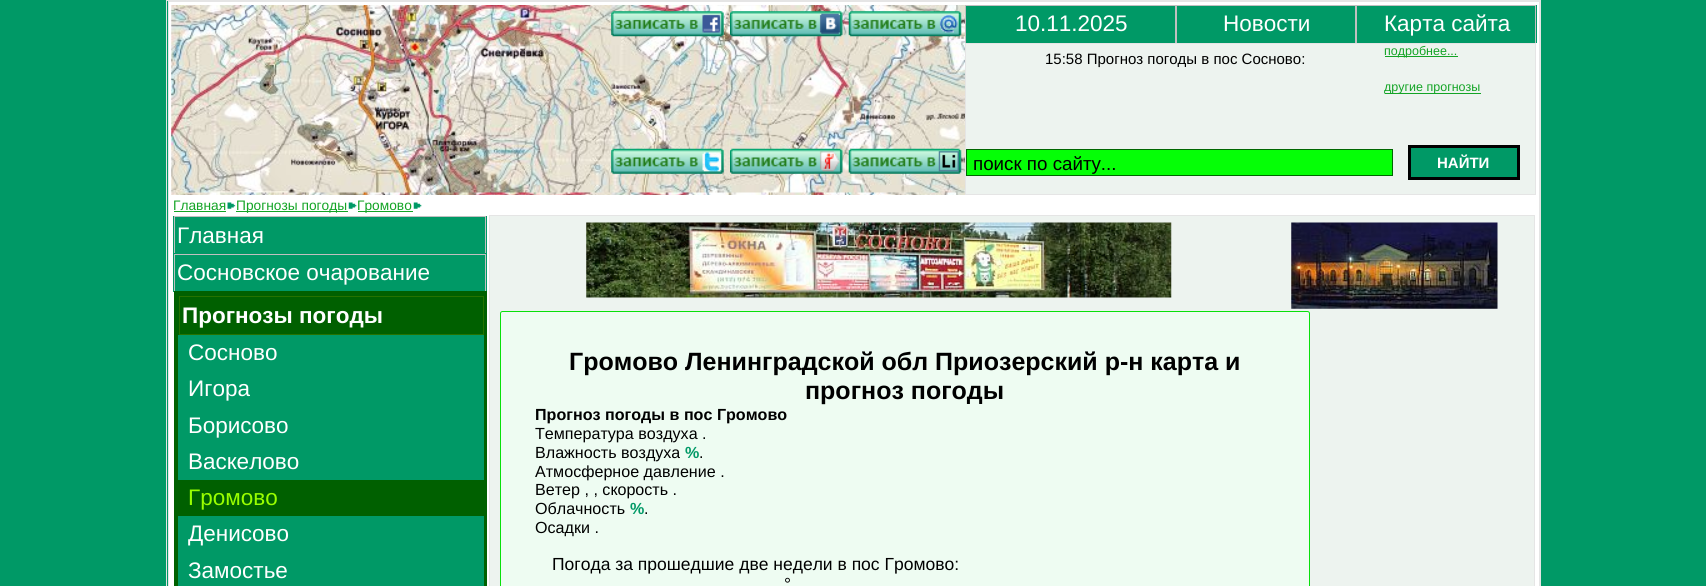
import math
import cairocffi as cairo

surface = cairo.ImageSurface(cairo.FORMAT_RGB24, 1706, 586)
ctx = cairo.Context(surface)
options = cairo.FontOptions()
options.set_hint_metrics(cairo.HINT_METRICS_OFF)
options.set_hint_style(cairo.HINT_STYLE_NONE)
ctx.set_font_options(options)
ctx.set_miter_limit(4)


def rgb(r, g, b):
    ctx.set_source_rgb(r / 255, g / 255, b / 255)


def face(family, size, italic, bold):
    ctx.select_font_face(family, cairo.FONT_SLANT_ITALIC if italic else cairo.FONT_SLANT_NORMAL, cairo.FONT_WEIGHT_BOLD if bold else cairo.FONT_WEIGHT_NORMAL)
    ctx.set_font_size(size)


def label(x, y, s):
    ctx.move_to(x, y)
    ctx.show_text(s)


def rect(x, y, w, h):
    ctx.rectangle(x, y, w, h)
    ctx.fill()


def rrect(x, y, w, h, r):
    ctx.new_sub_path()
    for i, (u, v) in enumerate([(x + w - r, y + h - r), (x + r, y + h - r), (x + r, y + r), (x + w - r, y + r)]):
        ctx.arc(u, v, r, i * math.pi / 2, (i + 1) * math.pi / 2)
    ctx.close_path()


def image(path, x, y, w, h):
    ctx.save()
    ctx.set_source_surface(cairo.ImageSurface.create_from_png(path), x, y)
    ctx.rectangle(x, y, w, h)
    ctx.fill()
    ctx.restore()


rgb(0, 153, 102)
ctx.paint()
ctx.rectangle(166.5, 0.5, 1374, 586)
rgb(229, 229, 229)
ctx.set_line_width(1)
ctx.stroke()
rgb(255, 255, 255)
ctx.rectangle(168.5, 1.5, 1371, 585)
ctx.fill_preserve()
rgb(229, 229, 229)
ctx.stroke()
image('image0.png', 171, 5, 794, 190)
image('image1.png', 611, 11, 113, 26)
image('image2.png', 730, 11, 113, 26)
image('image3.png', 848, 11, 114, 26)
image('image4.png', 611, 148, 113, 26)
image('image5.png', 730, 148, 113, 26)
image('image6.png', 848, 148, 114, 26)
rgb(0, 153, 102)
rect(966, 6, 209, 37)
rgb(192, 192, 192)
rect(965, 5, 391, 1)
rect(1175, 5, 2, 38)
rect(965, 5, 1, 38)
face('Liberation Sans', 22.5, 0, 0)
rgb(255, 255, 255)
label(1015, 31, '10.11.2025')
rgb(0, 153, 102)
rect(1177, 6, 178, 37)
rgb(192, 192, 192)
rect(1355, 5, 1, 38)
rgb(255, 255, 255)
label(1223, 31, 'Новости')
rgb(0, 153, 102)
rect(1357, 5, 180, 38)
rgb(192, 192, 192)
rect(1356, 5, 180, 1)
rect(1535, 5, 1, 38)
rect(1356, 5, 1, 38)
rgb(255, 255, 255)
label(1384, 31, 'Карта сайта')
rgb(237, 243, 239)
ctx.rectangle(965.5, 43.5, 570, 151)
ctx.fill_preserve()
rgb(229, 229, 229)
ctx.stroke()
face('Liberation Sans', 15, 0, 0)
rgb(0, 0, 0)
label(1045, 64, '15:58 Прогноз погоды в пос Сосново:')
rgb(19, 164, 37)
rect(1385, 56, 73, 1)
face('Liberation Sans', 12.5, 0, 0)
label(1384, 55, 'подробнее...')
rect(1385, 93, 96, 1)
label(1384, 91, 'другие прогнозы')
rgb(5, 255, 6)
ctx.rectangle(966.5, 149.5, 426, 26)
ctx.fill_preserve()
rgb(0, 102, 0)
ctx.stroke()
face('Liberation Sans', 18.75, 0, 0)
rgb(0, 0, 0)
label(973, 170, 'поиск по сайту...')
rgb(0, 153, 102)
ctx.rectangle(1409.5, 146.5, 109, 32)
ctx.fill_preserve()
rgb(0, 0, 0)
ctx.set_line_width(3)
ctx.stroke()
face('Liberation Sans', 15, 0, 1)
rgb(255, 255, 255)
label(1437, 168, 'НАЙТИ')
face('Liberation Sans', 13.75, 0, 0)
rgb(19, 164, 37)
label(173, 210, 'Главная')
rect(174, 211, 52, 1)
image('image7.png', 227, 202, 9, 7)
rect(236, 211, 112, 1)
label(236, 210, 'Прогнозы погоды')
image('image8.png', 348, 202, 9, 7)
rect(358, 211, 55, 1)
label(357, 210, 'Громово')
image('image8.png', 413, 202, 9, 7)
rgb(0, 153, 102)
rect(173, 216, 314, 37)
rgb(192, 192, 192)
rect(174, 216, 312, 1)
rect(485, 216, 1, 38)
rect(174, 216, 1, 38)
face('Liberation Sans', 22.5, 0, 0)
rgb(255, 255, 255)
label(177, 243, 'Главная')
rgb(0, 153, 102)
rect(173, 253, 314, 39)
rgb(192, 192, 192)
rect(174, 254, 312, 1)
rect(485, 254, 1, 37)
rect(174, 254, 1, 37)
rgb(255, 255, 255)
label(177, 280, 'Сосновское очарование')
rgb(0, 96, 0)
rect(179, 297, 305, 219)
rect(174, 291, 312, 5)
rect(484, 291, 3, 295)
rect(174, 291, 5, 295)
ctx.rectangle(179.5, 296.5, 304, 38)
rgb(38, 114, 0)
ctx.set_line_width(1)
ctx.stroke()
face('Liberation Sans', 22.5, 0, 1)
rgb(255, 255, 255)
label(182, 323, 'Прогнозы погоды')
rgb(0, 153, 102)
rect(178, 335, 306, 145)
face('Liberation Sans', 22.5, 0, 0)
rgb(255, 255, 255)
label(188, 360, 'Сосново')
label(188, 396, 'Игора')
label(188, 433, 'Борисово')
label(188, 469, 'Васкелово')
rgb(153, 255, 0)
label(188, 505, 'Громово')
rgb(0, 153, 102)
rect(178, 516, 306, 70)
rgb(255, 255, 255)
label(188, 541, 'Денисово')
label(188, 578, 'Замостье')
rgb(237, 243, 239)
ctx.rectangle(489.5, 215.5, 1045, 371)
ctx.fill_preserve()
rgb(229, 229, 229)
ctx.stroke()
image('image9.png', 586, 222, 586, 76)
image('image10.png', 1291, 222, 207, 87)
rgb(238, 252, 242)
rrect(500.5, 311.5, 809, 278, 2)
ctx.fill_preserve()
rgb(7, 224, 10)
ctx.stroke()
face('Liberation Sans', 25, 0, 1)
rgb(0, 0, 0)
label(569, 370, 'Громово Ленинградской обл Приозерский р-н карта и')
label(805, 399, 'прогноз погоды')
face('Liberation Sans', 16.1, 0, 1)
label(535, 420, 'Прогноз погоды в пос Громово')
face('Liberation Sans', 16.1, 0, 0)
label(535, 439, 'Температура воздуха .')
label(535, 458, 'Влажность воздуха')
face('Liberation Sans', 16.1, 0, 1)
rgb(0, 153, 102)
label(685, 458, '%')
face('Liberation Sans', 16.1, 0, 0)
rgb(0, 0, 0)
label(699, 458, '.')
label(535, 477, 'Атмосферное давление .')
label(535, 495, 'Ветер , , скорость .')
label(535, 514, 'Облачность')
face('Liberation Sans', 16.1, 0, 1)
rgb(0, 153, 102)
label(630, 514, '%')
face('Liberation Sans', 16.1, 0, 0)
rgb(0, 0, 0)
label(644, 514, '.')
label(535, 533, 'Осадки .')
face('Liberation Sans', 17.5, 0, 0)
label(552, 570, 'Погода за прошедшие две недели в пос Громово:')
label(784, 590, '°')
surface.write_to_png('render.png')
